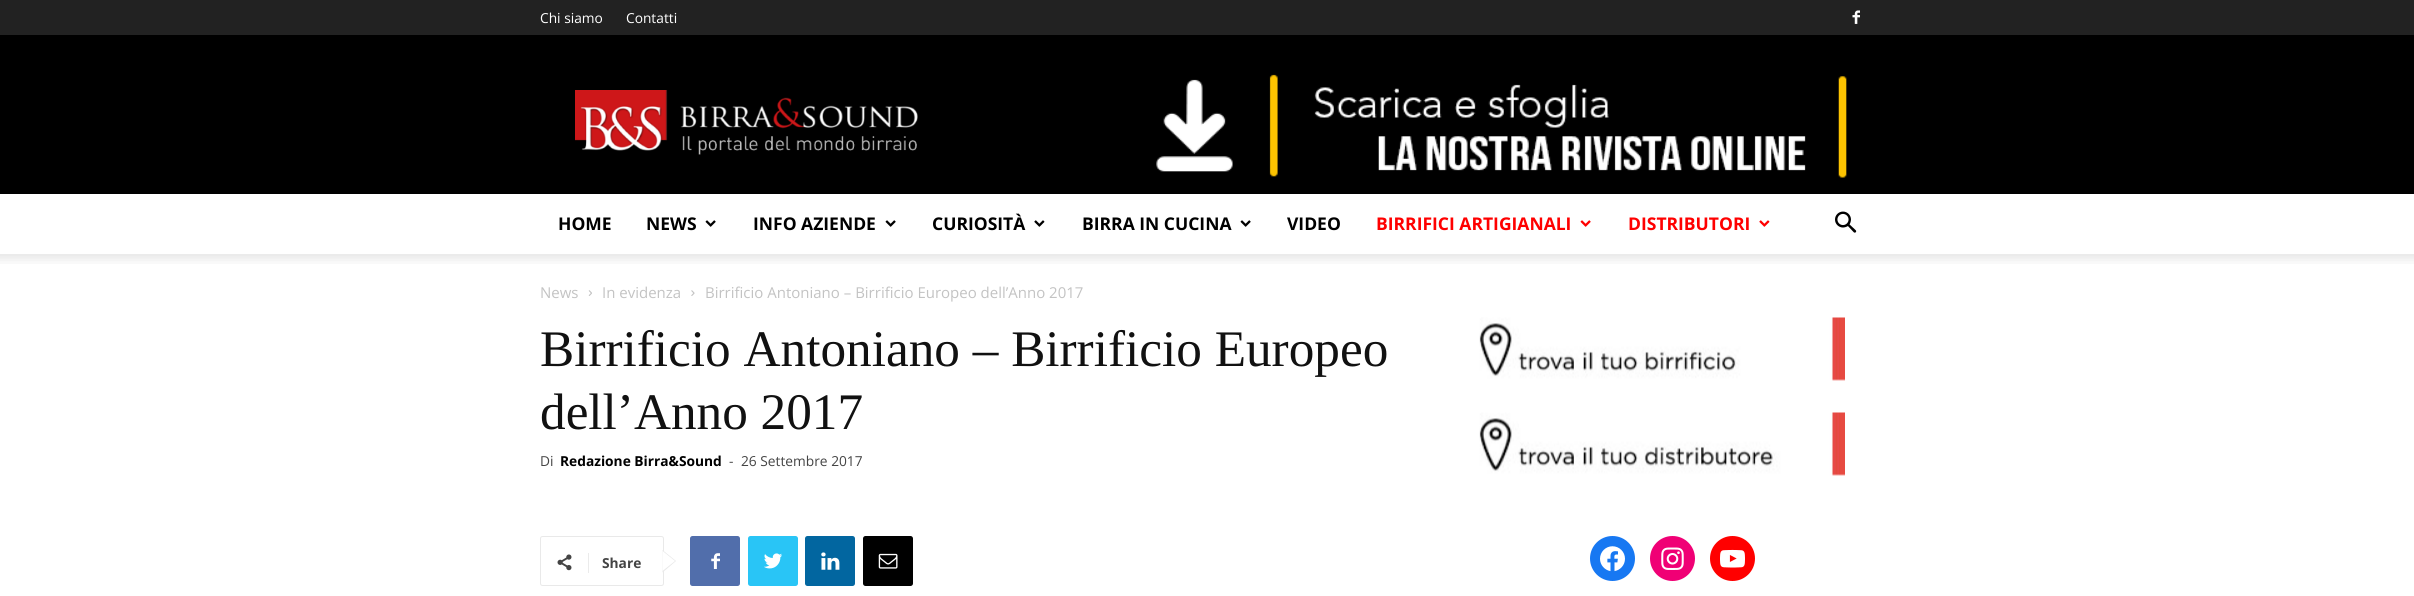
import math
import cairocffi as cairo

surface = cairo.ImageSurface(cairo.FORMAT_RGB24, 2414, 596)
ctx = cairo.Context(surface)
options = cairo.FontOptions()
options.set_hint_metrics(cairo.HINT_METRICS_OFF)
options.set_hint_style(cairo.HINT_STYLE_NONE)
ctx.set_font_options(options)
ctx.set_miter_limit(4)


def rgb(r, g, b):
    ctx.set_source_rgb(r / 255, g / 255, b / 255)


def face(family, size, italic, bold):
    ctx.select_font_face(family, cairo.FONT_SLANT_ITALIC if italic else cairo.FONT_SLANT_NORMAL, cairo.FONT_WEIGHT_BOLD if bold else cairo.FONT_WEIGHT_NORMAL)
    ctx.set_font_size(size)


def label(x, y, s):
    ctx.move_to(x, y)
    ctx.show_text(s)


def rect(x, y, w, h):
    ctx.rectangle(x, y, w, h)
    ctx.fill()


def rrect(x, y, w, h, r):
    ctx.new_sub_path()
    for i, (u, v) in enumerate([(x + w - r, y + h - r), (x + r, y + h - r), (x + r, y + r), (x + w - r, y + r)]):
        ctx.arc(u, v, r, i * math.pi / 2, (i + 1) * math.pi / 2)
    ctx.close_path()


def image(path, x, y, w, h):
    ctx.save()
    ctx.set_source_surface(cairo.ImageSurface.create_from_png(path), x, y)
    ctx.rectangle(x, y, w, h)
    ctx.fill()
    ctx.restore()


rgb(255, 255, 255)
ctx.paint()
rgb(34, 34, 34)
rect(0, 0, 2414, 35)
face('Open Sans', 13.75, 0, 0)
rgb(255, 255, 255)
label(540, 23, 'Chi siamo')
label(626, 23, 'Contatti')
image('image0.png', 1852, 10, 8, 14)
rgb(0, 0, 0)
rect(0, 35, 2414, 159)
image('image1.png', 575, 90, 343, 65)
image('image2.png', 1156, 74, 691, 104)
face('Open Sans', 17.5, 0, 1)
label(558, 230, 'HOME')
label(646, 230, 'NEWS')
image('image3.png', 705, 220, 11, 7)
label(753, 230, 'INFO AZIENDE')
image('image3.png', 885, 220, 11, 7)
label(932, 230, 'CURIOSITÀ')
image('image4.png', 1034, 220, 11, 7)
label(1082, 230, 'BIRRA IN CUCINA')
image('image3.png', 1240, 220, 11, 7)
label(1287, 230, 'VIDEO')
rgb(255, 0, 0)
label(1376, 230, 'BIRRIFICI ARTIGIANALI')
image('image5.png', 1580, 220, 11, 7)
label(1628, 230, 'DISTRIBUTORI')
image('image6.png', 1759, 220, 11, 7)
image('image7.png', 1835, 211, 22, 22)
image('image8.png', 0, 254, 2414, 10)
face('Open Sans', 15, 0, 0)
rgb(195, 195, 195)
label(540, 298, 'News')
image('image9.png', 588, 290, 4, 6)
label(602, 298, 'In evidenza')
image('image10.png', 691, 290, 4, 6)
label(705, 298, 'Birrificio Antoniano – Birrificio Europeo dell’Anno 2017')
face('Liberation Serif', 51.25, 0, 0)
rgb(17, 17, 17)
label(540, 366, 'Birrificio Antoniano – Birrificio Europeo')
label(540, 429, 'dell’Anno 2017')
face('Open Sans', 13.75, 0, 0)
rgb(68, 68, 68)
label(540, 466, 'Di')
face('Open Sans', 13.75, 0, 1)
rgb(0, 0, 0)
label(560, 466, 'Redazione Birra&Sound')
face('Open Sans', 13.75, 0, 0)
rgb(68, 68, 68)
label(729, 466, '-')
label(741, 466, '26 Settembre 2017')
rrect(540.5, 536.5, 123, 49, 2)
rgb(233, 233, 233)
ctx.set_line_width(1)
ctx.stroke()
ctx.new_path()
ctx.move_to(662.5, 572.5)
ctx.line_to(662.5, 550)
ctx.line_to(676, 561)
ctx.close_path()
ctx.fill()
image('image11.png', 557, 554, 15, 17)
rgb(235, 235, 235)
rect(588, 553, 1, 20)
face('Open Sans', 13.75, 0, 1)
rgb(68, 68, 68)
label(602, 568, 'Share')
rgb(255, 255, 255)
ctx.new_path()
ctx.move_to(662.5, 571)
ctx.line_to(662.5, 551)
ctx.line_to(675, 561)
ctx.close_path()
ctx.fill()
rgb(81, 110, 171)
rrect(690, 536, 50, 50, 2.5)
ctx.fill()
image('image12.png', 711, 553, 9, 16)
rgb(41, 197, 246)
rrect(748, 536, 50, 50, 2.5)
ctx.fill()
image('image13.png', 764, 553, 18, 16)
rgb(2, 102, 160)
rrect(805, 536, 50, 50, 2.5)
ctx.fill()
image('image14.png', 821, 552, 19, 18)
rgb(0, 0, 0)
rrect(863, 536, 50, 50, 2.5)
ctx.fill()
image('image15.png', 878, 553, 20, 16)
image('image16.png', 1479, 317, 366, 64)
image('image17.png', 1479, 412, 366, 64)
rgb(23, 120, 242)
ctx.arc(1612.5, 558.5, 22.5, 0, 2 * math.pi)
ctx.fill()
image('image18.png', 1600, 546, 25, 26)
rgb(240, 0, 117)
ctx.arc(1672.5, 558.5, 22.5, 0, 2 * math.pi)
ctx.fill()
image('image19.png', 1661, 547, 23, 23)
rgb(255, 0, 0)
ctx.arc(1732.5, 558.5, 22.5, 0, 2 * math.pi)
ctx.fill()
image('image20.png', 1720, 549, 25, 19)
surface.write_to_png('render.png')
